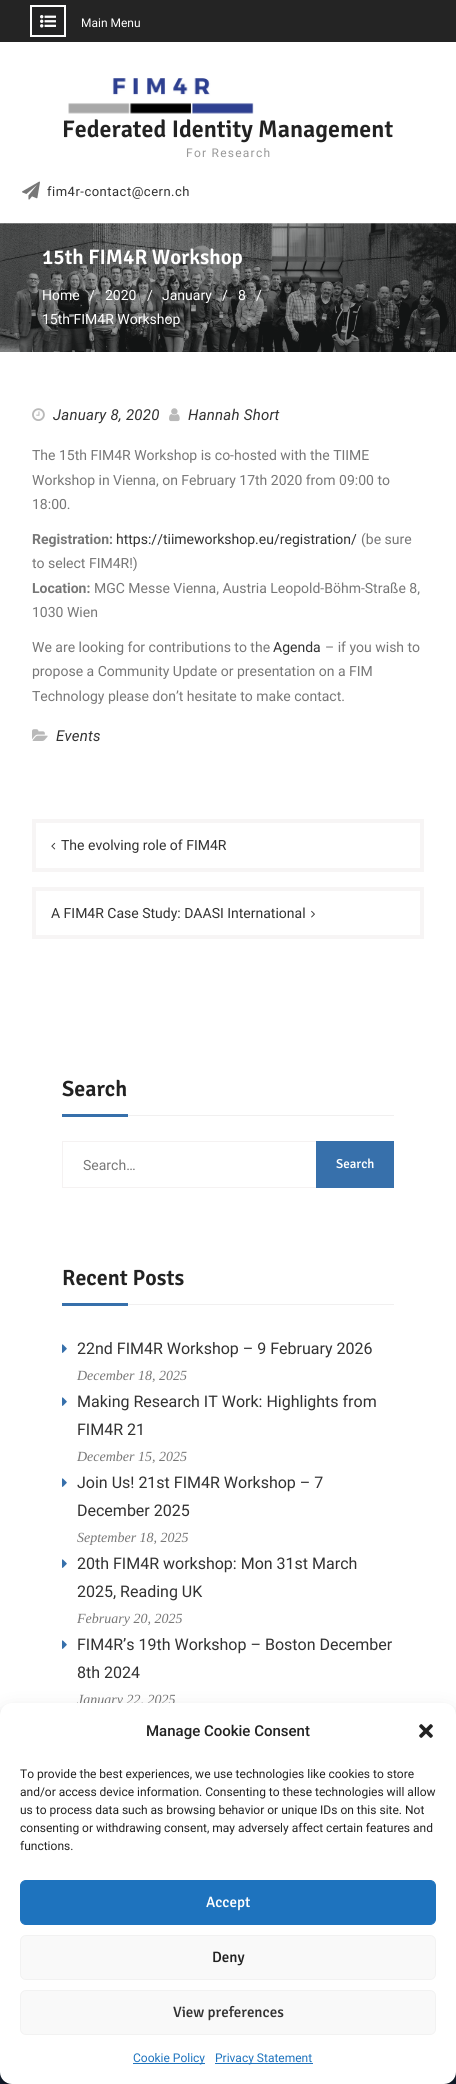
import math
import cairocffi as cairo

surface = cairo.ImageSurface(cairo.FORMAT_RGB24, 456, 2084)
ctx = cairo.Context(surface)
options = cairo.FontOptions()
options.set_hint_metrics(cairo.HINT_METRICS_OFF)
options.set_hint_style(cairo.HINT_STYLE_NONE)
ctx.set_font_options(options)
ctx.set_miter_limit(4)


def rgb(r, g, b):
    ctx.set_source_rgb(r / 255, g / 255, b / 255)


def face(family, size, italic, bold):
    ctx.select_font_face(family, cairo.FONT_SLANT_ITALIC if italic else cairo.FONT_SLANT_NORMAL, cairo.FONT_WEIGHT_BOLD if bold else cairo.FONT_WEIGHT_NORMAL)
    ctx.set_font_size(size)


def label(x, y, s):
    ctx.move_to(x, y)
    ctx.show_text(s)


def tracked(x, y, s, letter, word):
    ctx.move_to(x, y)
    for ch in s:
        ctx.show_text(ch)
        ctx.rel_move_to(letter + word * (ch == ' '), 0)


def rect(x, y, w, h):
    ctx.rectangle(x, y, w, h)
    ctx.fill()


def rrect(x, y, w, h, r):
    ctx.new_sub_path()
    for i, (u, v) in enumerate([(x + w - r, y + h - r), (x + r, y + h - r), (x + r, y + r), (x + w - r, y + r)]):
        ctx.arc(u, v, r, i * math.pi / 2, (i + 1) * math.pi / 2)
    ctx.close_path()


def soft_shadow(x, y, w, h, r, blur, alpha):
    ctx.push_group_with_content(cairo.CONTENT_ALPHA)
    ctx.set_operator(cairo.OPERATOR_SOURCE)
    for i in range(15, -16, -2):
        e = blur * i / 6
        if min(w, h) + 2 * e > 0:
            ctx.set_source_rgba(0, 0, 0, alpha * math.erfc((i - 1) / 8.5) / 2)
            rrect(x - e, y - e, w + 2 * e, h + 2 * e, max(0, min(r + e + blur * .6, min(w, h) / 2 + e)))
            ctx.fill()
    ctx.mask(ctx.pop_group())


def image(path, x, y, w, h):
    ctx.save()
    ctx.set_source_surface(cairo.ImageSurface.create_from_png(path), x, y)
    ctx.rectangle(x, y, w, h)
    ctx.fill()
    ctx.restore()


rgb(255, 255, 255)
ctx.paint()
rgb(36, 36, 36)
rect(0, 0, 456, 42)
ctx.rectangle(31, 6, 34, 30)
rgb(255, 255, 254)
ctx.stroke()
image('image0.png', 40, 15, 16, 13)
face('Roboto', 12, 0, 0)
rgb(255, 255, 255)
label(81, 27, 'Main Menu')
image('image1.png', 68, 78, 186, 36)
face('Signika SemiBold', 24, 0, 0)
rgb(34, 34, 34)
label(62, 137, 'Federated Identity Management')
face('Roboto', 12, 0, 0)
rgb(153, 153, 153)
tracked(186, 157, 'For Research', 1.25, 0)
image('image2.png', 22, 181, 18, 19)
face('Roboto', 13, 0, 0)
rgb(50, 50, 50)
tracked(47, 196, 'fim4r-contact@cern.ch', 0.5, 0)
image('image3.png', 0, 223, 456, 129)
face('Signika SemiBold', 21, 0, 0)
rgb(255, 255, 255)
label(42, 264, '15th FIM4R Workshop')
face('Roboto', 14, 0, 0)
label(42, 300, 'Home')
label(89, 300, '/')
label(105, 300, '2020')
label(147, 300, '/')
label(162, 300, 'January')
label(222, 300, '/')
label(238, 300, '8')
label(256, 300, '/')
label(42, 324, '15th FIM4R Workshop')
image('image4.png', 32, 408, 13, 13)
face('Roboto', 15, 1, 0)
rgb(50, 50, 50)
tracked(53, 420, 'January 8, 2020', 0.25, 0)
image('image5.png', 169, 408, 11, 14)
tracked(188, 420, 'Hannah Short', 0.25, 0)
face('Roboto', 14, 0, 0)
rgb(119, 119, 119)
label(32, 460, 'The 15th FIM4R Workshop is co-hosted with the TIIME')
label(32, 485, 'Workshop in Vienna, on February 17th 2020 from 09:00 to')
label(32, 509, '18:00.')
face('Roboto', 14, 0, 1)
label(32, 544, 'Registration:')
face('Roboto', 14, 0, 0)
rgb(50, 50, 50)
label(116, 544, 'https://tiimeworkshop.eu/registration/')
rgb(119, 119, 119)
label(361, 544, '(be sure')
label(32, 568, 'to select FIM4R!)')
face('Roboto', 14, 0, 1)
label(32, 593, 'Location:')
face('Roboto', 14, 0, 0)
label(94, 593, 'MGC Messe Vienna, Austria Leopold-Böhm-Straße 8,')
label(32, 617, '1030 Wien')
label(32, 652, 'We are looking for contributions to the')
rgb(50, 50, 50)
label(273, 652, 'Agenda')
rgb(119, 119, 119)
label(325, 652, '– if you wish to')
label(32, 676, 'propose a Community Update or presentation on a FIM')
label(32, 701, 'Technology please don’t hesitate to make contact.')
image('image6.png', 32, 729, 16, 12)
face('Roboto', 15, 1, 0)
rgb(50, 50, 50)
tracked(56, 741, 'Events', 0.25, 0)
ctx.rectangle(34, 821, 388, 49)
rgb(247, 245, 245)
ctx.set_line_width(4)
ctx.stroke()
image('image7.png', 51, 842, 5, 8)
face('Roboto', 14, 0, 0)
rgb(50, 50, 50)
label(61, 850, 'The evolving role of FIM4R')
ctx.rectangle(34, 889, 388, 48)
rgb(247, 245, 245)
ctx.stroke()
rgb(50, 50, 50)
label(51, 918, 'A FIM4R Case Study: DAASI International')
image('image8.png', 311, 910, 4, 8)
rgb(241, 240, 240)
rect(128, 1115, 266, 1)
face('Signika SemiBold', 22, 0, 0)
rgb(34, 34, 34)
label(62, 1096, 'Search')
rgb(55, 112, 171)
rect(62, 1114, 66, 3)
ctx.rectangle(62.5, 1141.5, 331, 46)
rgb(245, 242, 242)
ctx.set_line_width(1)
ctx.stroke()
face('Roboto', 14, 0, 0)
rgb(119, 119, 119)
label(83, 1170, 'Search…')
rgb(55, 112, 171)
rect(316, 1141, 78, 47)
face('Signika Medium', 13, 0, 0)
rgb(255, 255, 255)
label(336, 1168, 'Search')
rgb(241, 240, 240)
rect(128, 1304, 266, 1)
face('Signika SemiBold', 22, 0, 0)
rgb(34, 34, 34)
label(62, 1285, 'Recent Posts')
rgb(55, 112, 171)
rect(62, 1303, 66, 3)
image('image9.png', 62, 1344, 5, 9)
face('Roboto', 16, 0, 0)
rgb(50, 50, 50)
label(77, 1354, '22nd FIM4R Workshop – 9 February 2026')
face('Liberation Serif', 14, 1, 0)
rgb(119, 119, 119)
label(77, 1380, 'December 18, 2025')
image('image9.png', 62, 1397, 5, 9)
face('Roboto', 16, 0, 0)
rgb(50, 50, 50)
label(77, 1407, 'Making Research IT Work: Highlights from')
label(77, 1435, 'FIM4R 21')
face('Liberation Serif', 14, 1, 0)
rgb(119, 119, 119)
label(77, 1461, 'December 15, 2025')
image('image9.png', 62, 1478, 5, 9)
face('Roboto', 16, 0, 0)
rgb(50, 50, 50)
label(77, 1488, 'Join Us! 21st FIM4R Workshop – 7')
label(77, 1516, 'December 2025')
face('Liberation Serif', 14, 1, 0)
rgb(119, 119, 119)
label(77, 1542, 'September 18, 2025')
image('image9.png', 62, 1559, 5, 9)
face('Roboto', 16, 0, 0)
rgb(50, 50, 50)
label(77, 1569, '20th FIM4R workshop: Mon 31st March')
label(77, 1597, '2025, Reading UK')
face('Liberation Serif', 14, 1, 0)
rgb(119, 119, 119)
label(77, 1623, 'February 20, 2025')
image('image9.png', 62, 1640, 5, 9)
face('Roboto', 16, 0, 0)
rgb(50, 50, 50)
label(77, 1650, 'FIM4R’s 19th Workshop – Boston December')
label(77, 1678, '8th 2024')
face('Liberation Serif', 14, 1, 0)
rgb(119, 119, 119)
label(77, 1704, 'January 22, 2025')
rgb(20, 31, 49)
rect(0, 2072, 456, 12)
rgb(0, 0, 0)
soft_shadow(0, 1709, 456, 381, 12, 3, 0.23)
soft_shadow(0, 1713, 456, 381, 12, 10, 0.19)
rgb(128, 128, 128)
soft_shadow(386, 2010, 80, 60, 2, 2.5, 1)
rgb(255, 255, 255)
rrect(0, 1703, 456, 381, 12)
ctx.fill()
face('Roboto Medium', 15, 0, 0)
rgb(34, 34, 34)
label(146, 1736, 'Manage Cookie Consent')
image('image10.png', 419, 1724, 14, 14)
face('Roboto', 12, 0, 0)
label(20, 1778, 'To provide the best experiences, we use technologies like cookies to store')
label(20, 1796, 'and/or access device information. Consenting to these technologies will allow')
label(20, 1814, 'us to process data such as browsing behavior or unique IDs on this site. Not')
label(20, 1832, 'consenting or withdrawing consent, may adversely affect certain features and')
label(20, 1850, 'functions.')
rgb(30, 115, 190)
rrect(20.5, 1880.5, 415, 44, 5.5)
ctx.fill_preserve()
ctx.stroke()
face('Signika Medium', 15, 0, 0)
rgb(255, 255, 255)
label(206, 1907, 'Accept')
rgb(249, 249, 249)
rrect(20.5, 1935.5, 415, 44, 5.5)
ctx.fill_preserve()
rgb(242, 242, 242)
ctx.stroke()
rgb(34, 34, 34)
label(212, 1962, 'Deny')
rgb(249, 249, 249)
rrect(20.5, 1990.5, 415, 44, 5.5)
ctx.fill_preserve()
rgb(242, 242, 242)
ctx.stroke()
rgb(50, 50, 50)
label(173, 2017, 'View preferences')
rgb(30, 115, 190)
rect(133, 2063, 72, 1)
face('Roboto', 12, 0, 0)
label(133, 2062, 'Cookie Policy')
rect(215, 2063, 98, 1)
label(215, 2062, 'Privacy Statement')
surface.write_to_png('render.png')
